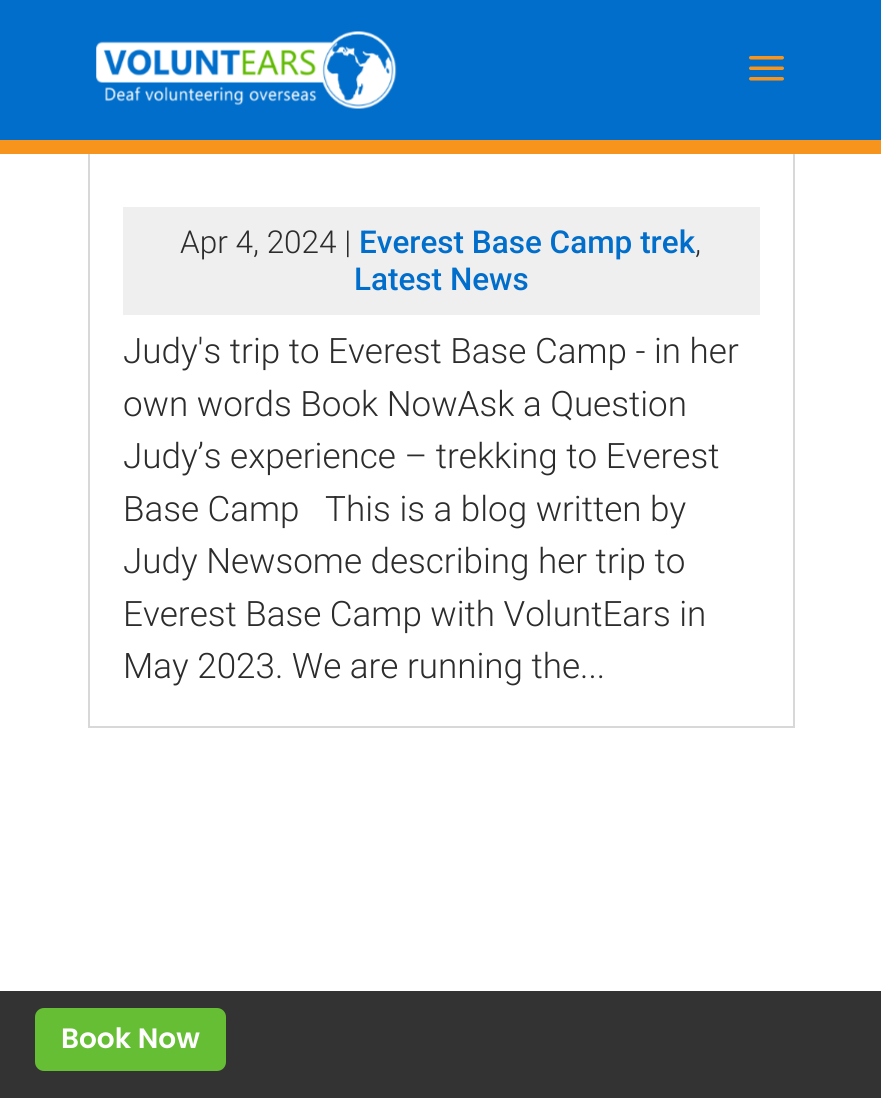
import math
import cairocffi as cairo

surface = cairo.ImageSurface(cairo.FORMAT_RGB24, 881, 1098)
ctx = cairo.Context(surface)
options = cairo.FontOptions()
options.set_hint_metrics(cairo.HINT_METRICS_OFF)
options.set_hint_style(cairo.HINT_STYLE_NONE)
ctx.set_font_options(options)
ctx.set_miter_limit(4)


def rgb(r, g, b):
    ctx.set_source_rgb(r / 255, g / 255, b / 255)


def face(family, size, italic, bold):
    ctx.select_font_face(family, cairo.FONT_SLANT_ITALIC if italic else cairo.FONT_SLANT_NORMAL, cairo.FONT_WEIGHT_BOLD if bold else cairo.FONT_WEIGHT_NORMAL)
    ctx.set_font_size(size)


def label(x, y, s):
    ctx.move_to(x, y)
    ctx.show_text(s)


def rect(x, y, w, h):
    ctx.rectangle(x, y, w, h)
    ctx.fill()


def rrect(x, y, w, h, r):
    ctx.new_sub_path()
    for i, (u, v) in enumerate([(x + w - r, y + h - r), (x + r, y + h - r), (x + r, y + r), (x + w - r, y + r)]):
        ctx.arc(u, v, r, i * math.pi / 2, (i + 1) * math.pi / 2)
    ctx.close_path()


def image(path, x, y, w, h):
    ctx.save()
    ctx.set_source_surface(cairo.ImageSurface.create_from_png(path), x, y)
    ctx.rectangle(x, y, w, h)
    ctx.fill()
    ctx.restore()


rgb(255, 255, 255)
ctx.paint()
ctx.rectangle(89, -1, 705, 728)
rgb(216, 216, 216)
ctx.stroke()
rgb(0, 110, 202)
rect(0, 0, 881, 140)
rgb(247, 148, 29)
rect(0, 140, 881, 14)
image('image0.png', 96, 31, 301, 78)
image('image1.png', 749, 56, 35, 25)
rgb(239, 239, 239)
rect(123, 207, 637, 108)
face('Roboto Light', 31.5, 0, 0)
rgb(44, 44, 44)
label(180, 253, 'Apr 4, 2024 |')
face('Roboto Medium', 31.5, 0, 0)
rgb(0, 110, 202)
label(359, 253, 'Everest Base Camp trek')
face('Roboto Light', 31.5, 0, 0)
rgb(44, 44, 44)
label(695, 253, ',')
face('Roboto Medium', 31.5, 0, 0)
rgb(0, 110, 202)
label(354, 290, 'Latest News')
face('Roboto Light', 35, 0, 0)
rgb(44, 44, 44)
label(123, 363, 'Judy\'s trip to Everest Base Camp - in her')
label(123, 416, 'own words Book NowAsk a Question')
label(123, 468, 'Judy’s experience – trekking to Everest')
label(123, 521, 'Base Camp   This is a blog written by')
label(123, 573, 'Judy Newsome describing her trip to')
label(123, 626, 'Everest Base Camp with VoluntEars in')
label(123, 678, 'May 2023. We are running the...')
rgb(51, 51, 51)
rect(0, 991, 881, 107)
rgb(102, 190, 52)
rrect(35, 1008, 191, 63, 9)
ctx.fill()
face('Poppins SemiBold', 28, 0, 0)
rgb(255, 255, 255)
label(61, 1048, 'Book Now')
surface.write_to_png('render.png')
